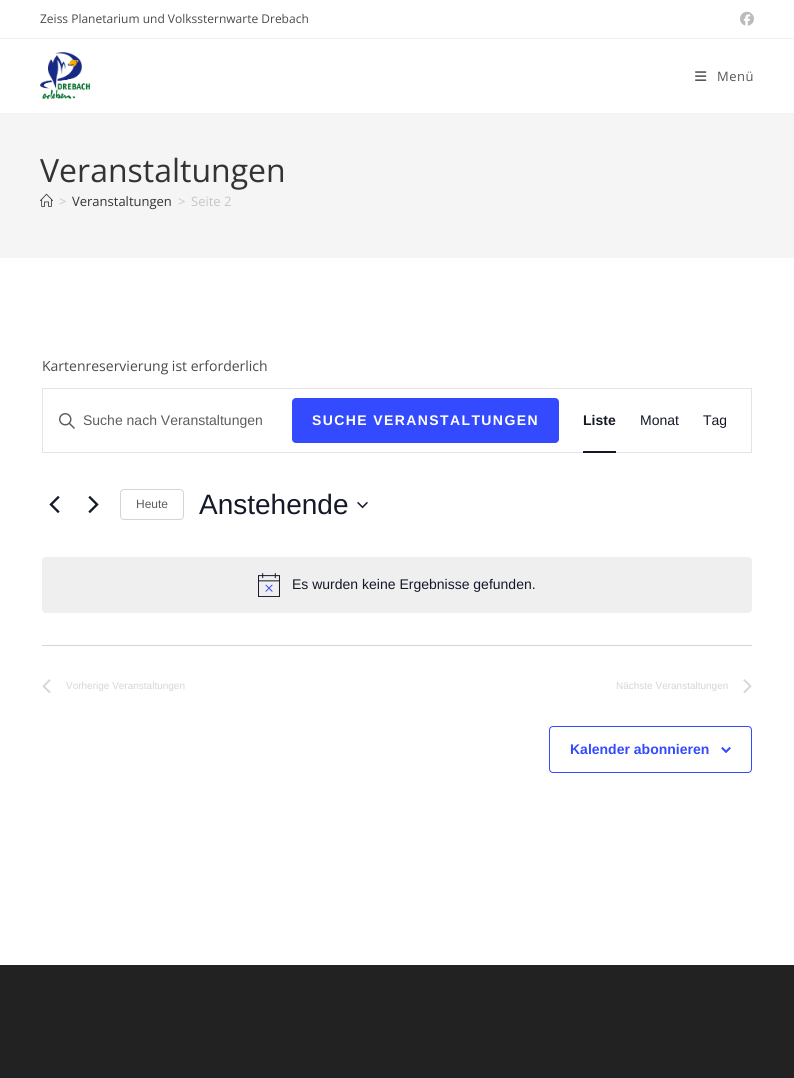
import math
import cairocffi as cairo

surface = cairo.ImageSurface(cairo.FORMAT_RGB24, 794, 1078)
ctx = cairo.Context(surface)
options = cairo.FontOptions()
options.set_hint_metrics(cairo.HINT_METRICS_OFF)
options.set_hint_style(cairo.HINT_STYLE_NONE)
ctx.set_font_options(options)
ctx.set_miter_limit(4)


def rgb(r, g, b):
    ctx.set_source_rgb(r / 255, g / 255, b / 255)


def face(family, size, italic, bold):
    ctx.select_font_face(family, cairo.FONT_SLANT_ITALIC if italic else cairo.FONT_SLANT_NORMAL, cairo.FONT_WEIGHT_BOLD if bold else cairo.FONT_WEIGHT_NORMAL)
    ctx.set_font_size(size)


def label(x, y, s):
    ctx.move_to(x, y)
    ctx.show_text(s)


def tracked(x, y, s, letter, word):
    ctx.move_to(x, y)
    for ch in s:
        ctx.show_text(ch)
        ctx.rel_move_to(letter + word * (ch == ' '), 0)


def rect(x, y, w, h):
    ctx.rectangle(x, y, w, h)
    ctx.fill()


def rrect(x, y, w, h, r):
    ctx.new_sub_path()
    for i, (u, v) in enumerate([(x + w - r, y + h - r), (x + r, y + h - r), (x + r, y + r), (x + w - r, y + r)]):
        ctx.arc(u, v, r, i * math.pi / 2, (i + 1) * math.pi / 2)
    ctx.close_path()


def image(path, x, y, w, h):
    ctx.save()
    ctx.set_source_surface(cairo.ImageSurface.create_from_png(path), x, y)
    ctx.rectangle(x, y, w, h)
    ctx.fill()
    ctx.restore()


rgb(255, 255, 255)
ctx.paint()
rgb(241, 241, 241)
rect(0, 38, 794, 1)
face('Open Sans', 12, 0, 0)
rgb(74, 74, 74)
label(40, 23, 'Zeiss Planetarium und Volkssternwarte Drebach')
image('image0.png', 740, 11, 14, 15)
rgb(241, 241, 241)
rect(0, 113, 794, 1)
image('image1.png', 40, 52, 50, 47)
image('image2.png', 695, 71, 12, 10)
face('Open Sans', 13, 0, 0)
rgb(85, 85, 85)
tracked(717, 81, 'Menü', 0.5, 0)
rgb(245, 245, 245)
rect(0, 114, 794, 144)
face('Open Sans', 32, 0, 0)
rgb(51, 51, 51)
label(40, 182, 'Veranstaltungen')
image('image3.png', 40, 193, 13, 14)
face('Open Sans', 13, 0, 0)
rgb(198, 198, 198)
label(59, 206, '>')
rgb(51, 51, 51)
label(72, 206, 'Veranstaltungen')
rgb(198, 198, 198)
label(178, 206, '>')
label(191, 206, 'Seite 2')
face('Open Sans', 14, 0, 0)
rgb(74, 74, 74)
label(42, 371, 'Kartenreservierung ist erforderlich')
ctx.rectangle(42.5, 388.5, 709, 64)
rgb(228, 228, 228)
ctx.set_line_width(1)
ctx.stroke()
image('image4.png', 59, 413, 16, 16)
face('Liberation Sans', 14, 0, 0)
rgb(93, 93, 93)
label(83, 425, 'Suche nach Veranstaltungen')
rgb(51, 74, 255)
rrect(292, 398, 267, 45, 4)
ctx.fill()
face('Liberation Sans', 14, 0, 1)
rgb(255, 255, 255)
tracked(312, 425, 'SUCHE VERANSTALTUNGEN', 1.4, 0)
rgb(20, 24, 39)
label(583, 425, 'Liste')
rect(583, 451, 33, 2)
face('Liberation Sans', 14, 0, 0)
label(640, 425, 'Monat')
label(703, 425, 'Tag')
image('image5.png', 49, 495, 11, 19)
image('image6.png', 88, 495, 11, 19)
rrect(120.5, 489.5, 63, 30, 3.5)
rgb(213, 213, 213)
ctx.stroke()
face('Liberation Sans', 12, 0, 0)
rgb(93, 93, 93)
label(136, 508, 'Heute')
face('Liberation Sans', 28, 0, 0)
rgb(20, 24, 39)
label(199, 514, 'Anstehende')
image('image7.png', 357, 501, 11, 8)
rgb(239, 239, 240)
rrect(42, 557, 710, 56, 4)
ctx.fill()
image('image8.png', 258, 573, 22, 24)
face('Liberation Sans', 14, 0, 0)
rgb(20, 24, 39)
label(292, 589, 'Es wurden keine Ergebnisse gefunden.')
rgb(213, 213, 213)
rect(42, 645, 710, 1)
image('image9.png', 42, 679, 9, 14)
face('Liberation Sans', 10, 0, 0)
label(66, 689, 'Vorherige Veranstaltungen')
label(616, 689, 'Nächste Veranstaltungen')
image('image10.png', 743, 679, 9, 14)
rrect(549.5, 726.5, 202, 46, 3.5)
rgb(51, 74, 255)
ctx.stroke()
face('Liberation Sans', 14, 0, 1)
label(570, 754, 'Kalender abonnieren')
image('image11.png', 721, 747, 10, 6)
rgb(34, 34, 34)
rect(0, 965, 794, 113)
surface.write_to_png('render.png')
